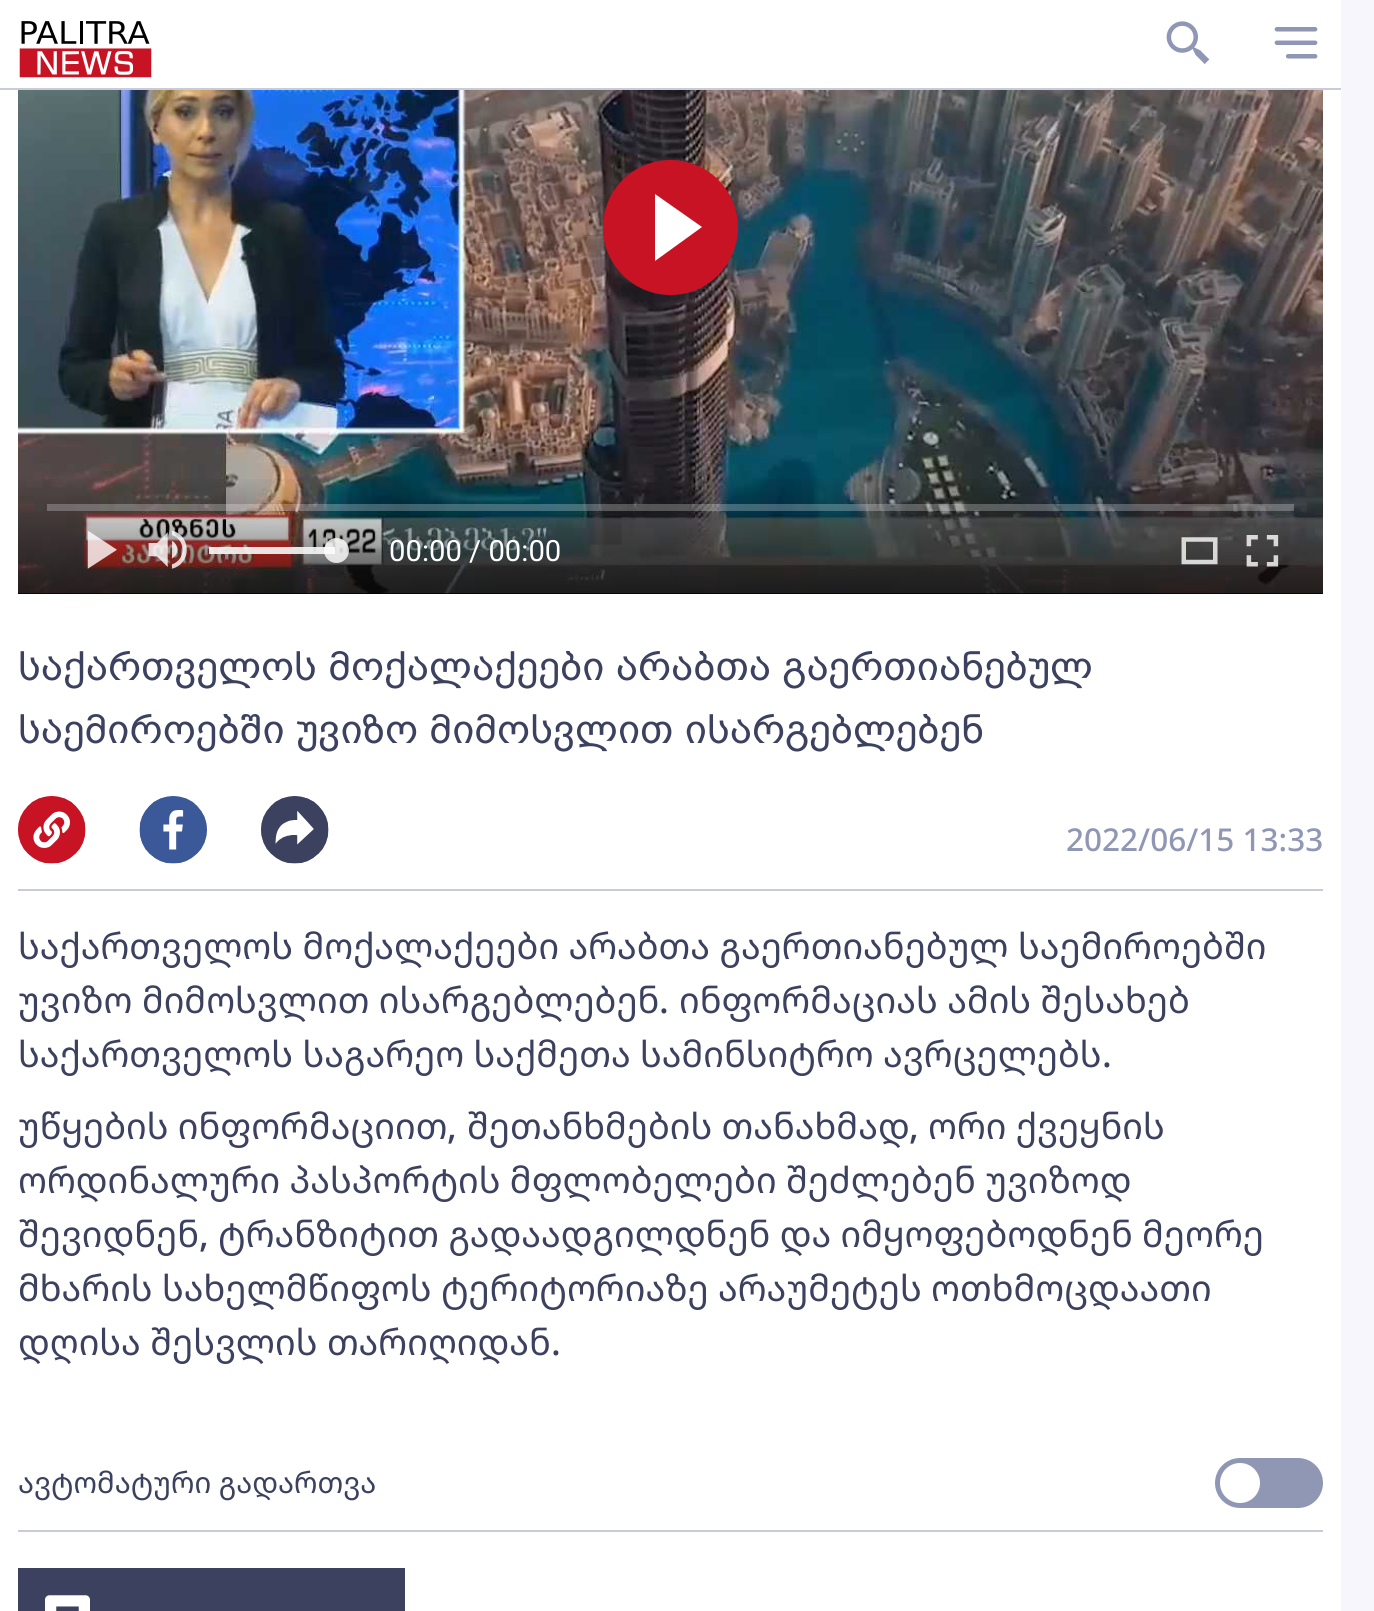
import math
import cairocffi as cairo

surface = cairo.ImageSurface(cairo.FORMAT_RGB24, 1374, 1611)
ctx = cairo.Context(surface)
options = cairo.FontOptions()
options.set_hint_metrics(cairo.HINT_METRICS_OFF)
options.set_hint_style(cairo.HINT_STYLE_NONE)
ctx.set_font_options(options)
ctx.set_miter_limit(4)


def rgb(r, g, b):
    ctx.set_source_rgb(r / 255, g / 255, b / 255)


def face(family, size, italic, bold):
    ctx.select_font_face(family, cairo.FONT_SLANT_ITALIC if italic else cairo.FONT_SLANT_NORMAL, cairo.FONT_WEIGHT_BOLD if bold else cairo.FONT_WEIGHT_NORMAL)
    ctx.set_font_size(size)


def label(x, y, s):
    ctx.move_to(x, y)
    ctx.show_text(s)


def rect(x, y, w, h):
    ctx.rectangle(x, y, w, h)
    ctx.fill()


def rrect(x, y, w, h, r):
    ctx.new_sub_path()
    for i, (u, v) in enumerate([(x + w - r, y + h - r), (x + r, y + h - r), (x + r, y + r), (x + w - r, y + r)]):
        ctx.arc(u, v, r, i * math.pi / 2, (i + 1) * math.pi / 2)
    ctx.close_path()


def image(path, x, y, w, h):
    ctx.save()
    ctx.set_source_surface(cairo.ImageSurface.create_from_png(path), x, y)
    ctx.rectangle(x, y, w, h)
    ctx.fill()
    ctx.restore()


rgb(246, 246, 252)
ctx.paint()
rgb(255, 255, 255)
rect(0, 90, 1341, 1521)
rect(0, 0, 1341, 88)
rgb(200, 203, 218)
rect(0, 88, 1341, 2)
image('image0.png', 19, 21, 133, 57)
image('image1.png', 1166, 21, 44, 43)
image('image2.png', 1274, 27, 44, 32)
rgb(0, 0, 0)
rect(18, 593, 1305, 1)
image('image3.png', 18, 90, 1305, 504)
rgb(199, 19, 36)
ctx.arc(670.5, 227.5, 67.5, 0, 2 * math.pi)
ctx.fill()
rgb(255, 255, 255)
ctx.new_path()
ctx.move_to(655, 261)
ctx.line_to(655, 194)
ctx.line_to(702, 227)
ctx.close_path()
ctx.fill()
gradient = cairo.LinearGradient(671, 475, 671, 594)
gradient.add_color_stop_rgba(0, 0, 0, 0, 0)
gradient.add_color_stop_rgba(1, 0, 0, 0, 0.6)
ctx.set_source(gradient)
rect(18, 479, 1305, 115)
ctx.set_source_rgba(1, 1, 1, 0.25)
rect(47, 504, 1247, 7)
image('image4.png', 87, 530, 30, 39)
image('image5.png', 148, 530, 39, 39)
ctx.set_source_rgba(0.671, 0.675, 0.675, 0.54)
rect(209, 547, 126, 7)
ctx.set_source_rgba(1, 1, 1, 0.8)
rect(209, 547, 126, 7)
ctx.arc(336.5, 550.5, 12.5, 0, 2 * math.pi)
ctx.fill()
face('Roboto', 29.25, 0, 0)
rgb(255, 255, 255)
label(389, 561, '00:00 / 00:00')
image('image6.png', 1181, 537, 37, 28)
image('image7.png', 1246, 535, 33, 32)
face('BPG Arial', 40.5, 0, 0)
rgb(59, 65, 94)
label(18, 680, 'საქართველოს მოქალაქეები არაბთა გაერთიანებულ')
label(18, 743, 'საემიროებში უვიზო მიმოსვლით ისარგებლებენ')
image('image8.png', 18, 796, 68, 68)
image('image9.png', 139, 796, 68, 68)
image('image10.png', 261, 796, 68, 68)
face('Noto Sans Medium', 31.5, 0, 0)
rgb(144, 151, 180)
label(1066, 851, '2022/06/15 13:33')
rgb(200, 203, 218)
rect(18, 889, 1305, 2)
face('Noto Sans Georgian', 36, 0, 0)
rgb(59, 65, 94)
label(18, 959, 'საქართველოს მოქალაქეები არაბთა გაერთიანებულ საემიროებში')
label(18, 1013, 'უვიზო მიმოსვლით ისარგებლებენ')
face('Noto Sans Medium', 36, 0, 0)
label(659, 1013, '.')
face('Noto Sans Georgian', 36, 0, 0)
label(679, 1013, 'ინფორმაციას ამის შესახებ')
label(18, 1067, 'საქართველოს საგარეო საქმეთა სამინსიტრო ავრცელებს')
face('Noto Sans Medium', 36, 0, 0)
label(1102, 1067, '.')
face('Noto Sans Georgian', 36, 0, 0)
label(18, 1139, 'უწყების ინფორმაციით')
face('Noto Sans Medium', 36, 0, 0)
label(447, 1139, ',')
face('Noto Sans Georgian', 36, 0, 0)
label(467, 1139, 'შეთანხმების თანახმად')
face('Noto Sans Medium', 36, 0, 0)
label(909, 1139, ',')
face('Noto Sans Georgian', 36, 0, 0)
label(928, 1139, 'ორი ქვეყნის')
label(18, 1193, 'ორდინალური პასპორტის მფლობელები შეძლებენ უვიზოდ')
label(18, 1247, 'შევიდნენ')
face('Noto Sans Medium', 36, 0, 0)
label(199, 1247, ',')
face('Noto Sans Georgian', 36, 0, 0)
label(218, 1247, 'ტრანზიტით გადაადგილდნენ და იმყოფებოდნენ მეორე')
label(18, 1301, 'მხარის სახელმწიფოს ტერიტორიაზე არაუმეტეს ოთხმოცდაათი')
label(18, 1355, 'დღისა შესვლის თარიღიდან')
face('Noto Sans Medium', 36, 0, 0)
label(551, 1355, '.')
rgb(200, 203, 218)
rect(18, 1530, 1305, 2)
face('Noto Sans Georgian', 29.25, 0, 0)
rgb(59, 65, 94)
label(18, 1493, 'ავტომატური გადართვა')
rgb(144, 151, 180)
rrect(1215, 1458, 108, 50, 25)
ctx.fill()
rgb(255, 255, 255)
ctx.arc(1240, 1483, 20, 0, 2 * math.pi)
ctx.fill()
rgb(59, 65, 94)
rect(18, 1568, 387, 43)
image('image11.png', 45, 1595, 45, 16)
surface.write_to_png('render.png')
